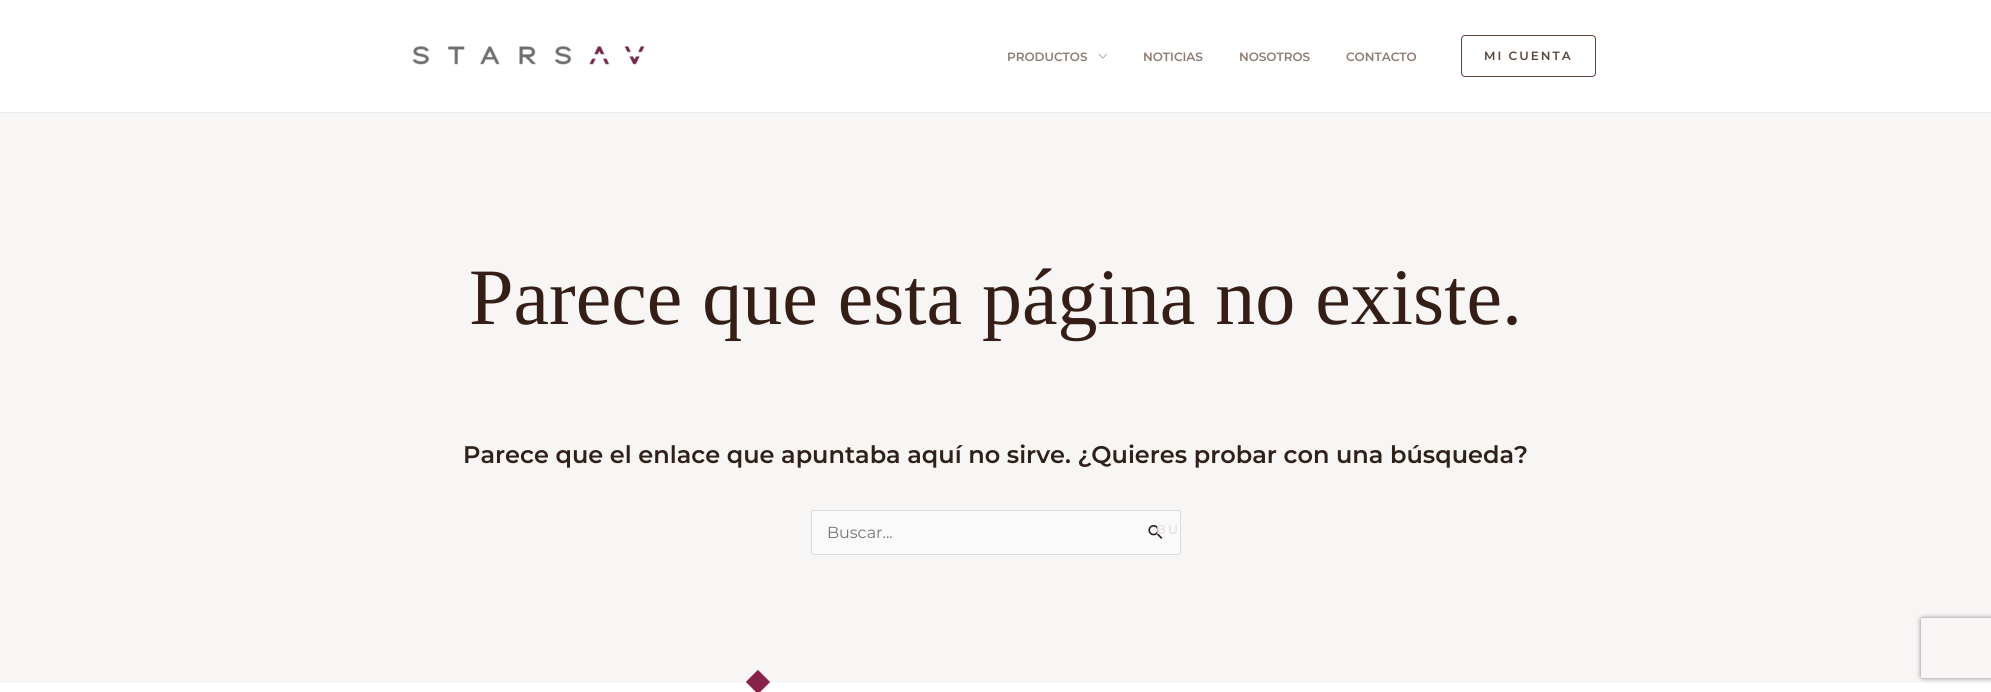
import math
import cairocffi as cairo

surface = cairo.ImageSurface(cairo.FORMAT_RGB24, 1991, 692)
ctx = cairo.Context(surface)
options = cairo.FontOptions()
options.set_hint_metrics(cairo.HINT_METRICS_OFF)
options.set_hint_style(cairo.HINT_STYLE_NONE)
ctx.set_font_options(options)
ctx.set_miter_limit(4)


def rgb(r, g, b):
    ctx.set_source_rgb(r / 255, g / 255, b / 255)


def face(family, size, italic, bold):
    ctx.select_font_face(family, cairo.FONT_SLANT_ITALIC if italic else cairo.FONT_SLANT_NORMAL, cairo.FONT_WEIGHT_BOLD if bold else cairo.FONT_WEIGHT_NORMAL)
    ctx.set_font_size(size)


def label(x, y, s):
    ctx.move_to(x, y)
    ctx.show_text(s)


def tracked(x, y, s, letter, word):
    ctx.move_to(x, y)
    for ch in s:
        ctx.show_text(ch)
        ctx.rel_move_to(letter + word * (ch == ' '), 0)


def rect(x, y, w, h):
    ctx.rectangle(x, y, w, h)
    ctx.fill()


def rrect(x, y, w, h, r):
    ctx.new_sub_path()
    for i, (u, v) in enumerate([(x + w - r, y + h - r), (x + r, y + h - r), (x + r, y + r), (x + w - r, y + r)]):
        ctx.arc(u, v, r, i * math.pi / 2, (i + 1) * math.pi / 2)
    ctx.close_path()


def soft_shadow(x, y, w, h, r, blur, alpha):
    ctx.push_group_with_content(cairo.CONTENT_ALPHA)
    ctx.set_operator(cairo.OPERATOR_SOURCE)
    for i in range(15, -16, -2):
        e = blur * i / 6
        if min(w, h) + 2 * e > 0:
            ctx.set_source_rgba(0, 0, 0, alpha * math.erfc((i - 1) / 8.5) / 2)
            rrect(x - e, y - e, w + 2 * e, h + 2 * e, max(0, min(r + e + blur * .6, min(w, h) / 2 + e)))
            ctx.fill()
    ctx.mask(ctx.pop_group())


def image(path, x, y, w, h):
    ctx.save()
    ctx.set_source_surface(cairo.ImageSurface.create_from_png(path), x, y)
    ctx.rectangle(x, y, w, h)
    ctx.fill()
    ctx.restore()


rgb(248, 245, 245)
ctx.paint()
rgb(255, 255, 255)
rect(0, 0, 1991, 112)
rgb(234, 234, 234)
rect(0, 112, 1991, 1)
image('image0.png', 412, 46, 233, 19)
face('Montserrat SemiBold', 12, 0, 0)
rgb(141, 123, 116)
label(1007, 61, 'PRODUCTOS')
image('image1.png', 1098, 53, 9, 6)
label(1143, 61, 'NOTICIAS')
label(1239, 61, 'NOSOTROS')
label(1346, 61, 'CONTACTO')
rrect(1461.5, 35.5, 134, 41, 3.5)
rgb(94, 68, 58)
ctx.set_line_width(1)
ctx.stroke()
tracked(1484, 60, 'MI CUENTA', 2, 0)
face('Liberation Serif', 80, 0, 0)
rgb(53, 30, 21)
label(469, 324, 'Parece que esta página no existe.')
face('Montserrat SemiBold', 24, 0, 0)
rgb(47, 32, 25)
label(463, 463, 'Parece que el enlace que apuntaba aquí no sirve. ¿Quieres probar con una búsqueda?')
rgb(250, 250, 250)
rrect(811.5, 510.5, 369, 44, 1.5)
ctx.fill_preserve()
rgb(221, 221, 221)
ctx.stroke()
face('Montserrat', 16, 0, 0)
rgb(117, 117, 117)
label(827, 538, 'Buscar...')
image('image2.png', 1148, 525, 15, 14)
face('Montserrat SemiBold', 13, 0, 0)
rgb(230, 228, 228)
tracked(1156, 534, 'BU', 2, 0)
rgb(255, 255, 255)
rect(0, 683, 1991, 9)
image('image3.png', 746, 670, 24, 22)
ctx.save()
ctx.set_fill_rule(cairo.FILL_RULE_EVEN_ODD)
ctx.new_path()
ctx.move_to(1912, 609)
ctx.line_to(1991, 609)
ctx.line_to(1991, 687)
ctx.line_to(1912, 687)
ctx.close_path()
ctx.move_to(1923, 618)
ctx.line_to(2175, 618)
ctx.curve_to(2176, 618, 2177, 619, 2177, 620)
ctx.line_to(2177, 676)
ctx.curve_to(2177, 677, 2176, 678, 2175, 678)
ctx.line_to(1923, 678)
ctx.curve_to(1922, 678, 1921, 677, 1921, 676)
ctx.line_to(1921, 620)
ctx.curve_to(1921, 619, 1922, 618, 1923, 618)
ctx.close_path()
ctx.clip()
rgb(128, 128, 128)
soft_shadow(1921, 618, 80, 60, 2, 2.5, 1)
ctx.restore()
surface.write_to_png('render.png')
